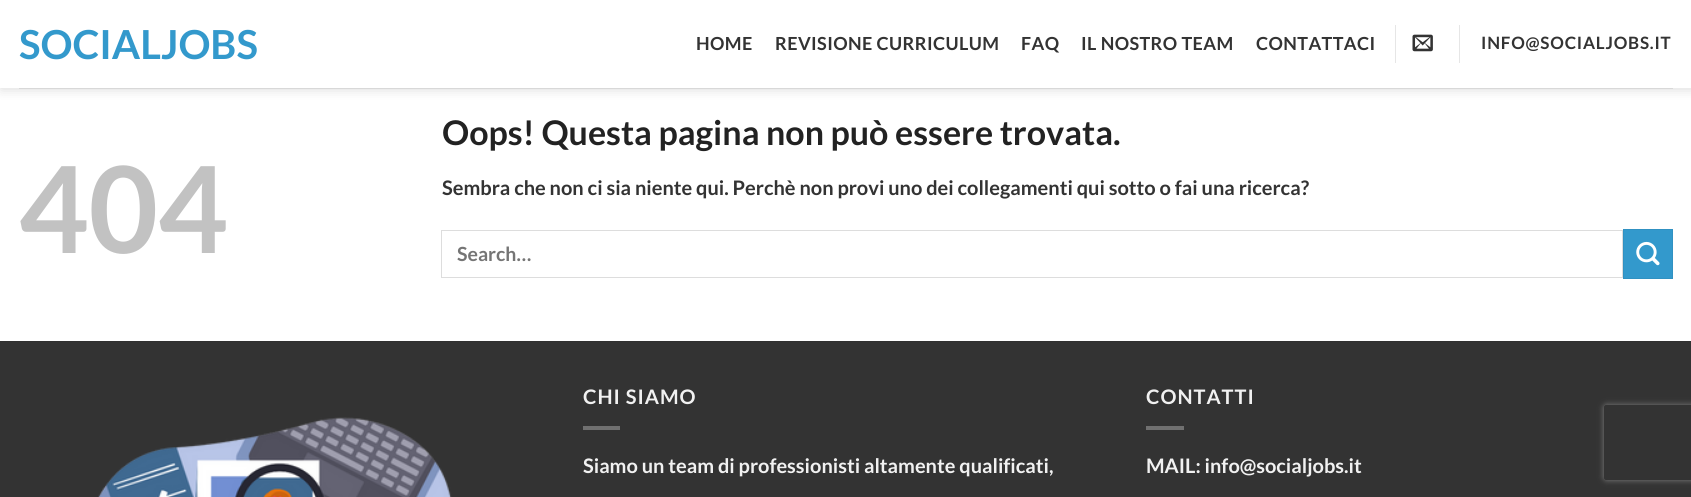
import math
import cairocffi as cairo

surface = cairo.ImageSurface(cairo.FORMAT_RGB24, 1691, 497)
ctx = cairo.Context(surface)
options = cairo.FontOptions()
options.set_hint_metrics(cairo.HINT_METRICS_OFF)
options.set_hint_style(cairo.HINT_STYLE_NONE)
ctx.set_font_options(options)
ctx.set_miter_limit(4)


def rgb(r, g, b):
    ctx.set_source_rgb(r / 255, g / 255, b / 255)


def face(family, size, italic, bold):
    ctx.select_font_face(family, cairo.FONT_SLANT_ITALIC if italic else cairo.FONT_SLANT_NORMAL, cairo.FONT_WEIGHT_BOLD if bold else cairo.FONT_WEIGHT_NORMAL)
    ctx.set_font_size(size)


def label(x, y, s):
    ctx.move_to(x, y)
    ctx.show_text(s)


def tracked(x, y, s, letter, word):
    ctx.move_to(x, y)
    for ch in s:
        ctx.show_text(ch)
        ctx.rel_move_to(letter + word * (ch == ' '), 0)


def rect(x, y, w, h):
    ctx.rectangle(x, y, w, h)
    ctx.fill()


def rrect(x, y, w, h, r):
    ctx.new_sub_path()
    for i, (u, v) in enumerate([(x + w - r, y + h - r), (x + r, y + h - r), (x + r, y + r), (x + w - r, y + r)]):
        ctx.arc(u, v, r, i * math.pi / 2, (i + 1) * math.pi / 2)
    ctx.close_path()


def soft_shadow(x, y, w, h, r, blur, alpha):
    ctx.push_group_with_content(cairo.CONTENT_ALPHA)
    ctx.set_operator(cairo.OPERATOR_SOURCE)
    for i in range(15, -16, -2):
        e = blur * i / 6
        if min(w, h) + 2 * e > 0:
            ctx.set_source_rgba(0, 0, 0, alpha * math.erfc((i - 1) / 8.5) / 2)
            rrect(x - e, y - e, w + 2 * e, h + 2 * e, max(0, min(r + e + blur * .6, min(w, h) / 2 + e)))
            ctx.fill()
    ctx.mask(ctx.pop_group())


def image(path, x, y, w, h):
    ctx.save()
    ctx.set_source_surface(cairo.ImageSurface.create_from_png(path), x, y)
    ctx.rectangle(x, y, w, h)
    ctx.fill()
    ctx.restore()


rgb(255, 255, 255)
ctx.paint()
ctx.save()
ctx.set_fill_rule(cairo.FILL_RULE_EVEN_ODD)
ctx.new_path()
ctx.move_to(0, 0)
ctx.line_to(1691, 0)
ctx.line_to(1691, 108)
ctx.line_to(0, 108)
ctx.close_path()
ctx.move_to(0, 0)
ctx.line_to(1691, 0)
ctx.line_to(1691, 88)
ctx.line_to(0, 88)
ctx.close_path()
ctx.clip()
rgb(0, 0, 0)
soft_shadow(1, 1, 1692, 88, 0, 6, 0.15)
ctx.restore()
face('Lato', 40, 0, 1)
rgb(51, 153, 204)
label(19, 59, 'SOCIALJOBS')
face('Lato', 18, 0, 1)
rgb(51, 51, 51)
tracked(696, 50, 'HOME', 0.4, 0)
tracked(775, 50, 'REVISIONE CURRICULUM', 0.4, 0)
tracked(1021, 50, 'FAQ', 0.4, 0)
tracked(1081, 50, 'IL NOSTRO TEAM', 0.4, 0)
tracked(1256, 50, 'CONTATTACI', 0.4, 0)
rgb(230, 230, 230)
rect(1395, 25, 1, 38)
image('image0.png', 1412, 34, 21, 18)
rect(1459, 25, 1, 38)
face('Lato', 17, 0, 1)
rgb(51, 51, 51)
tracked(1481, 49, 'INFO@SOCIALJOBS.IT', 0.8, 0)
rgb(216, 216, 216)
rect(19, 88, 1654, 1)
ctx.set_source_rgba(1, 1, 1, 0.9)
rect(0, 87, 1691, 1)
face('Lato', 120, 0, 1)
rgb(194, 194, 194)
label(19, 253, '404')
face('Lato', 34, 0, 1)
rgb(34, 34, 34)
label(442, 145, 'Oops! Questa pagina non può essere trovata.')
face('Lato', 20, 0, 1)
rgb(51, 51, 51)
label(442, 195, 'Sembra che non ci sia niente qui. Perchè non provi uno dei collegamenti qui sotto o fai una ricerca?')
ctx.rectangle(441.5, 230.5, 1181, 47)
rgb(221, 221, 221)
ctx.set_line_width(1)
ctx.stroke()
face('Lato', 19.5, 0, 1)
rgb(117, 117, 117)
label(457, 261, 'Search…')
rgb(51, 153, 204)
ctx.rectangle(1623.5, 229.5, 49, 49)
ctx.fill_preserve()
rgb(48, 145, 194)
ctx.stroke()
image('image1.png', 1636, 241, 24, 25)
rgb(51, 51, 51)
rect(0, 342, 1691, 155)
rgb(48, 48, 48)
rect(0, 341, 1691, 1)
image('image2.png', 98, 417, 354, 80)
face('Lato', 20, 0, 1)
rgb(241, 241, 241)
tracked(583, 404, 'CHI SIAMO', 1, 0)
rgb(112, 112, 112)
rect(583, 426, 37, 4)
rgb(241, 241, 241)
label(583, 473, 'Siamo un team di professionisti altamente qualificati,')
tracked(1146, 404, 'CONTATTI', 1, 0)
rgb(112, 112, 112)
rect(1146, 426, 38, 4)
rgb(241, 241, 241)
label(1146, 473, 'MAIL: info@socialjobs.it')
ctx.save()
ctx.set_fill_rule(cairo.FILL_RULE_EVEN_ODD)
ctx.new_path()
ctx.move_to(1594, 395)
ctx.line_to(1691, 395)
ctx.line_to(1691, 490)
ctx.line_to(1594, 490)
ctx.close_path()
ctx.move_to(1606.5, 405)
ctx.line_to(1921.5, 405)
ctx.curve_to(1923, 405, 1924, 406, 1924, 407.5)
ctx.line_to(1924, 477.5)
ctx.curve_to(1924, 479, 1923, 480, 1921.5, 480)
ctx.line_to(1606.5, 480)
ctx.curve_to(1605, 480, 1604, 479, 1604, 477.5)
ctx.line_to(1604, 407.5)
ctx.curve_to(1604, 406, 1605, 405, 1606.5, 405)
ctx.close_path()
ctx.clip()
rgb(128, 128, 128)
soft_shadow(1604, 405, 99, 75, 2.5, 3, 1)
ctx.restore()
surface.write_to_png('render.png')
